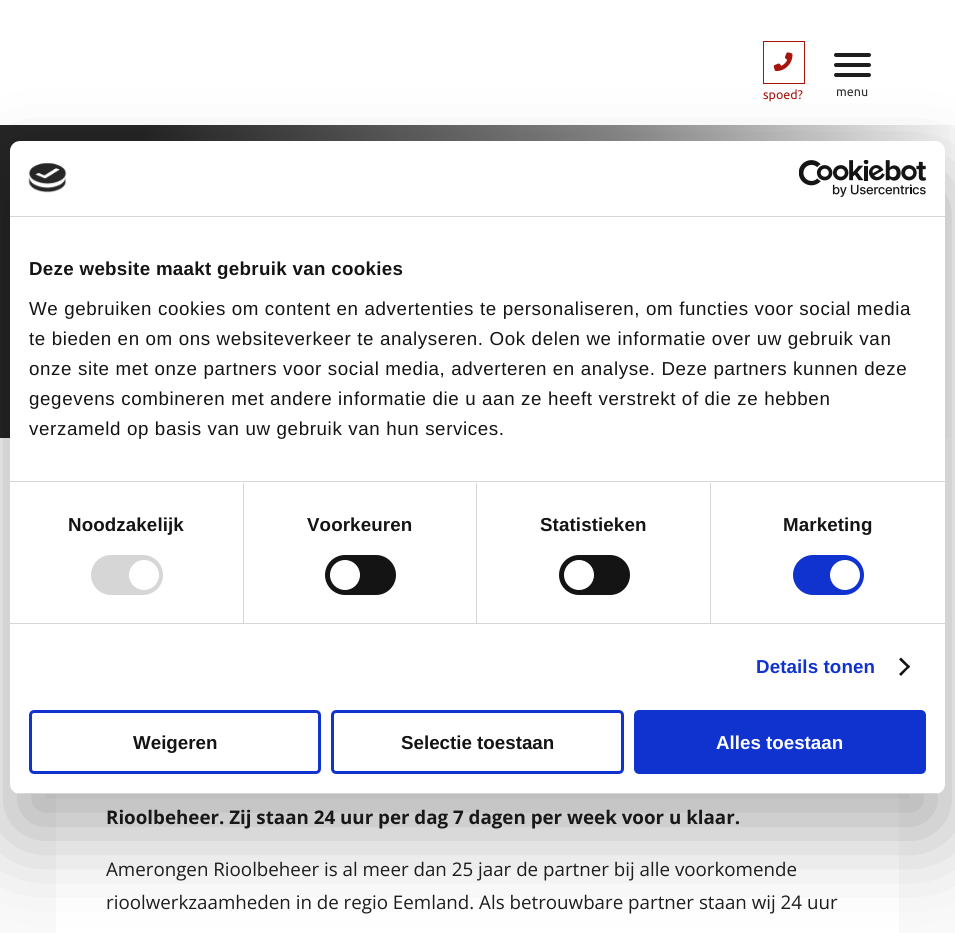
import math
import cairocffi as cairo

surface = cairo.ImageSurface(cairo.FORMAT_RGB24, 955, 933)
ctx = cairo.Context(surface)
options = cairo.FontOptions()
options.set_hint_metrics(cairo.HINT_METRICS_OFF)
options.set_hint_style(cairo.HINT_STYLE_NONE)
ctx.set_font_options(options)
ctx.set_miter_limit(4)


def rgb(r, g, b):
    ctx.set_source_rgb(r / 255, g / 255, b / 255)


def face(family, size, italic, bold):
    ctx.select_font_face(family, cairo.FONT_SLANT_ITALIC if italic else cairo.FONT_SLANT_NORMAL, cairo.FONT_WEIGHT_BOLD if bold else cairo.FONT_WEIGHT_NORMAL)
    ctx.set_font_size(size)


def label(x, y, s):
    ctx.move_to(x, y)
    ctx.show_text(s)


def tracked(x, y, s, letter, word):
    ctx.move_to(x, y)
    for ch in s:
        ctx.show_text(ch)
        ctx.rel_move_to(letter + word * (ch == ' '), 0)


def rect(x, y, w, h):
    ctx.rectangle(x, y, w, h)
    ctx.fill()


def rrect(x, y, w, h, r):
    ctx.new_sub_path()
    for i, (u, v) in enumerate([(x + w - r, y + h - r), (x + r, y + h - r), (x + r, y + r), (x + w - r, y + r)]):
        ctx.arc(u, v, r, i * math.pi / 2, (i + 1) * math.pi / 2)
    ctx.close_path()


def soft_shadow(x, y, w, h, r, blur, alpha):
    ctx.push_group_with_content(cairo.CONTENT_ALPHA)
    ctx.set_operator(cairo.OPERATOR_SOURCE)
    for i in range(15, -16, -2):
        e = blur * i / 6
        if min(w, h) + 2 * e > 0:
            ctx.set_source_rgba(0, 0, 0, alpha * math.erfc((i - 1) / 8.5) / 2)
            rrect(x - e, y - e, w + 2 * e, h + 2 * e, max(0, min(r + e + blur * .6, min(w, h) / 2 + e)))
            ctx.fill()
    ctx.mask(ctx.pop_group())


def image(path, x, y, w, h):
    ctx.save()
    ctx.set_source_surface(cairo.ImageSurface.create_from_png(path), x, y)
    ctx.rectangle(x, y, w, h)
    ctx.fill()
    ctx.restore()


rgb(249, 249, 249)
ctx.paint()
rgb(255, 255, 255)
rect(0, 0, 955, 125)
ctx.rectangle(763.5, 41.5, 41, 42)
rgb(167, 20, 13)
ctx.set_line_width(1)
ctx.stroke()
image('image0.png', 773, 52, 20, 20)
face('Ubuntu', 12.5, 0, 0)
label(763, 99, 'spoed?')
rgb(30, 30, 30)
rrect(834, 63, 37, 4, 2)
ctx.fill()
rrect(834, 53, 37, 4, 2)
ctx.fill()
rrect(834, 73, 37, 4, 2)
ctx.fill()
rgb(45, 45, 45)
label(836, 96, 'menu')
gradient = cairo.LinearGradient(0, 281, 955, 281)
gradient.add_color_stop_rgba(0.15, 0.145, 0.145, 0.145, 1)
gradient.add_color_stop_rgba(0.65, 0.537, 0.537, 0.537, 1)
gradient.add_color_stop_rgba(1, 0.973, 0.973, 0.973, 1)
ctx.set_source(gradient)
rect(0, 125, 951, 313)
rgb(255, 255, 255)
rect(56, 794, 843, 139)
face('Open Sans', 18.75, 0, 1)
rgb(30, 30, 30)
label(106, 824, 'Rioolbeheer. Zij staan 24 uur per dag 7 dagen per week voor u klaar.')
face('Open Sans', 18.75, 0, 0)
label(106, 876, 'Amerongen Rioolbeheer is al meer dan 25 jaar de partner bij alle voorkomende')
label(106, 909, 'rioolwerkzaamheden in de regio Eemland. Als betrouwbare partner staan wij 24 uur')
rgb(0, 0, 0)
soft_shadow(10, 181, 935, 653, 10, 42.5, 0.3)
rgb(255, 255, 255)
rrect(10, 141, 935, 653, 10)
ctx.fill()
rgb(214, 214, 214)
rect(10, 216, 935, 1)
image('image1.png', 28, 163, 39, 30)
image('image2.png', 799, 160, 127, 37)
rect(10, 481, 935, 1)
face('Liberation Sans', 18.75, 0, 1)
rgb(20, 20, 20)
tracked(29, 275, 'Deze website maakt gebruik van cookies', 0.3, 0)
face('Liberation Sans', 18.75, 0, 0)
tracked(29, 315, 'We gebruiken cookies om content en advertenties te personaliseren, om functies voor social media', 0.62, 0)
tracked(29, 345, 'te bieden en om ons websiteverkeer te analyseren. Ook delen we informatie over uw gebruik van', 0.62, 0)
tracked(29, 375, 'onze site met onze partners voor social media, adverteren en analyse. Deze partners kunnen deze', 0.62, 0)
tracked(29, 405, 'gegevens combineren met andere informatie die u aan ze heeft verstrekt of die ze hebben', 0.62, 0)
tracked(29, 435, 'verzameld op basis van uw gebruik van hun services.', 0.62, 0)
rgb(214, 214, 214)
rect(10, 623, 935, 1)
rect(243, 483, 1, 140)
face('Liberation Sans', 18.75, 0, 1)
rgb(20, 20, 20)
tracked(68, 531, 'Noodzakelijk', 0.1, 0)
rgb(214, 214, 214)
rrect(91, 555, 72, 40, 20)
ctx.fill()
rgb(255, 255, 255)
ctx.arc(144, 575, 15, 0, 2 * math.pi)
ctx.fill()
rgb(214, 214, 214)
rect(476, 483, 1, 140)
rgb(20, 20, 20)
tracked(307, 531, 'Voorkeuren', 0.1, 0)
rrect(325, 555, 71, 40, 20)
ctx.fill()
rgb(255, 255, 255)
ctx.arc(345, 575, 15, 0, 2 * math.pi)
ctx.fill()
rgb(214, 214, 214)
rect(710, 483, 1, 140)
rgb(20, 20, 20)
tracked(540, 531, 'Statistieken', 0.1, 0)
rrect(559, 555, 71, 40, 20)
ctx.fill()
rgb(255, 255, 255)
ctx.arc(579, 575, 15, 0, 2 * math.pi)
ctx.fill()
rgb(20, 20, 20)
tracked(783, 531, 'Marketing', 0.1, 0)
rgb(16, 50, 207)
rrect(793, 555, 71, 40, 20)
ctx.fill()
rgb(255, 255, 255)
ctx.arc(845, 575, 15, 0, 2 * math.pi)
ctx.fill()
rgb(16, 50, 207)
tracked(756, 673, 'Details tonen', 0.1, 0)
rgb(20, 20, 20)
ctx.new_path()
ctx.move_to(901, 657.5)
ctx.line_to(910, 666.5)
ctx.line_to(908.5, 668.5)
ctx.line_to(899, 659.5)
ctx.close_path()
ctx.fill()
ctx.new_path()
ctx.move_to(908.5, 665)
ctx.line_to(910, 666.5)
ctx.line_to(901, 676)
ctx.line_to(899, 674)
ctx.close_path()
ctx.fill()
ctx.save()
rrect(10, 141, 935, 653, 10)
ctx.clip()
rgb(214, 214, 214)
rect(10, 793, 935, 1)
ctx.restore()
rrect(30.5, 711.5, 289, 61, 3.5)
rgb(16, 50, 207)
ctx.set_line_width(3)
ctx.stroke()
rgb(20, 20, 20)
label(133, 749, 'Weigeren')
rrect(332.5, 711.5, 290, 61, 3.5)
rgb(16, 50, 207)
ctx.stroke()
rgb(20, 20, 20)
label(401, 749, 'Selectie toestaan')
rgb(16, 50, 207)
rrect(635.5, 711.5, 289, 61, 3.5)
ctx.fill_preserve()
ctx.stroke()
rgb(255, 255, 255)
label(716, 749, 'Alles toestaan')
surface.write_to_png('render.png')
